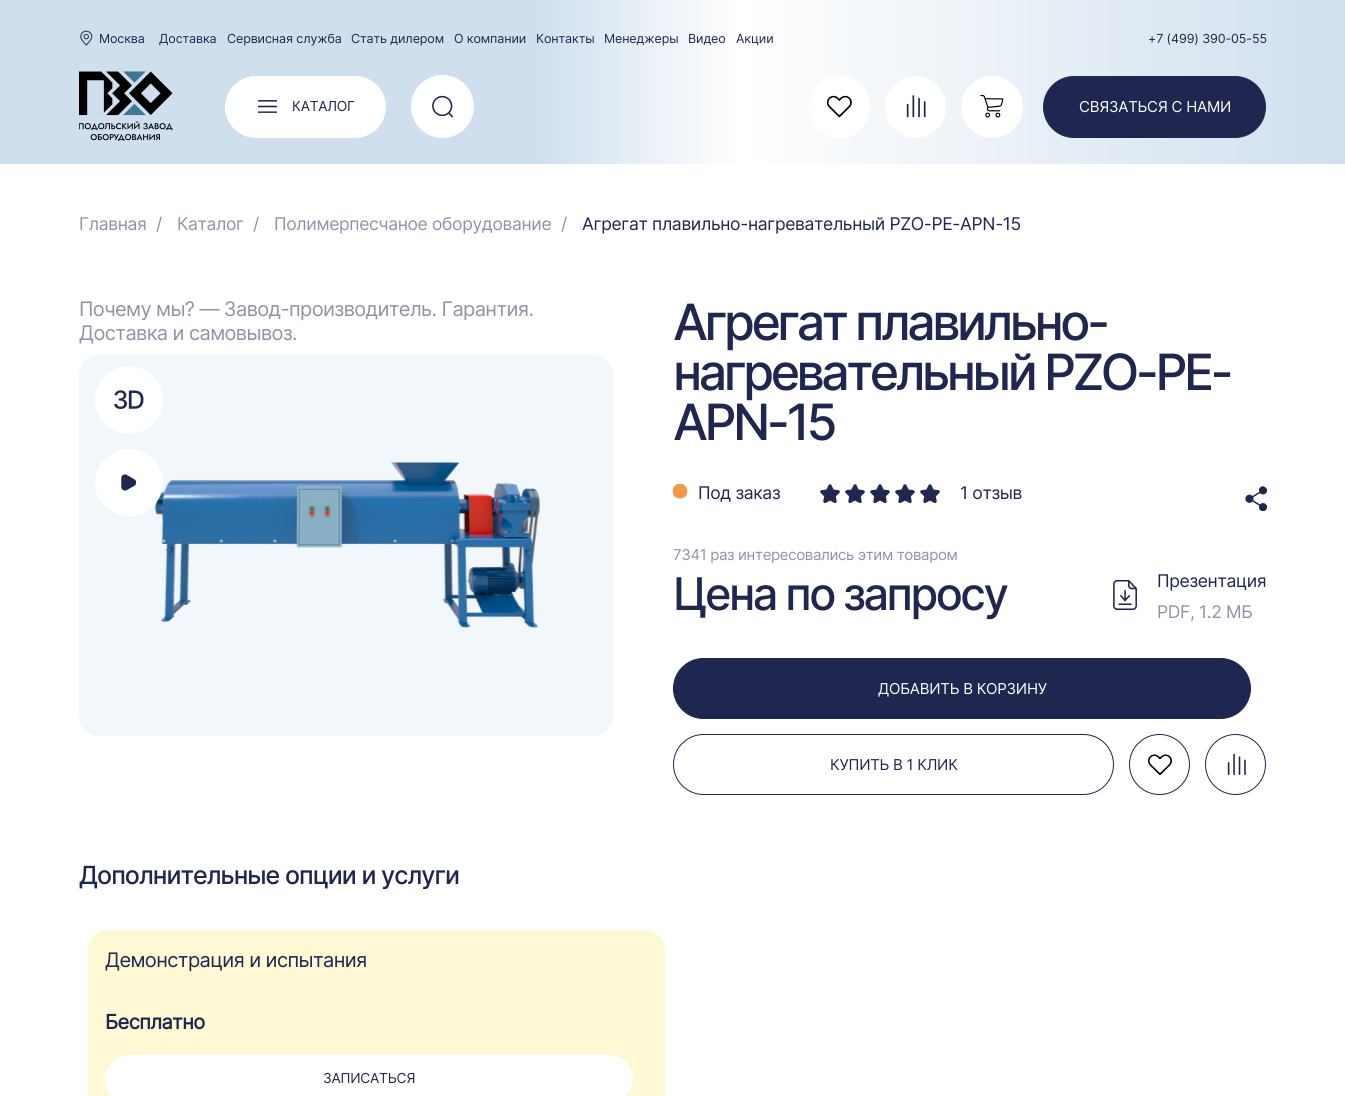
import math
import cairocffi as cairo

surface = cairo.ImageSurface(cairo.FORMAT_RGB24, 1345, 1096)
ctx = cairo.Context(surface)
options = cairo.FontOptions()
options.set_hint_metrics(cairo.HINT_METRICS_OFF)
options.set_hint_style(cairo.HINT_STYLE_NONE)
ctx.set_font_options(options)
ctx.set_miter_limit(4)


def rgb(r, g, b):
    ctx.set_source_rgb(r / 255, g / 255, b / 255)


def face(family, size, italic, bold):
    ctx.select_font_face(family, cairo.FONT_SLANT_ITALIC if italic else cairo.FONT_SLANT_NORMAL, cairo.FONT_WEIGHT_BOLD if bold else cairo.FONT_WEIGHT_NORMAL)
    ctx.set_font_size(size)


def tracked(x, y, s, letter, word):
    ctx.move_to(x, y)
    for ch in s:
        ctx.show_text(ch)
        ctx.rel_move_to(letter + word * (ch == ' '), 0)


def rect(x, y, w, h):
    ctx.rectangle(x, y, w, h)
    ctx.fill()


def rrect(x, y, w, h, r):
    ctx.new_sub_path()
    for i, (u, v) in enumerate([(x + w - r, y + h - r), (x + r, y + h - r), (x + r, y + r), (x + w - r, y + r)]):
        ctx.arc(u, v, r, i * math.pi / 2, (i + 1) * math.pi / 2)
    ctx.close_path()


def image(path, x, y, w, h):
    ctx.save()
    ctx.set_source_surface(cairo.ImageSurface.create_from_png(path), x, y)
    ctx.rectangle(x, y, w, h)
    ctx.fill()
    ctx.restore()


rgb(255, 255, 255)
ctx.paint()
gradient = cairo.LinearGradient(0, 23, 1345, 23)
gradient.add_color_stop_rgba(0.4, 0.816, 0.875, 0.933, 1)
gradient.add_color_stop_rgba(0.55, 1, 1, 1, 1)
gradient.add_color_stop_rgba(1, 0.816, 0.875, 0.933, 1)
ctx.set_source(gradient)
rect(0, 0, 1345, 46)
image('image0.png', 80, 30, 13, 16)
face('Inter', 12.5, 0, 0)
rgb(31, 38, 80)
tracked(99, 43, 'Москва', -0.1, 0)
tracked(159, 43, 'Доставка', -0.1, 0)
tracked(227, 43, 'Сервисная служба', -0.1, 0)
tracked(351, 43, 'Стать дилером', -0.1, 0)
tracked(454, 43, 'О компании', -0.1, 0)
tracked(536, 43, 'Контакты', -0.1, 0)
tracked(604, 43, 'Менеджеры', -0.1, 0)
tracked(688, 43, 'Видео', -0.1, 0)
tracked(736, 43, 'Акции', -0.1, 0)
tracked(1148, 43, '+7 (499) 390-05-55', -0.1, 0)
gradient = cairo.LinearGradient(0, 106, 1345, 106)
gradient.add_color_stop_rgba(0.4, 0.816, 0.875, 0.933, 1)
gradient.add_color_stop_rgba(0.55, 1, 1, 1, 1)
gradient.add_color_stop_rgba(1, 0.816, 0.875, 0.933, 1)
ctx.set_source(gradient)
rect(0, 46, 1345, 118)
image('image1.png', 79, 71, 94, 70)
rgb(255, 255, 255)
rrect(225, 76, 161, 62, 31)
ctx.fill()
image('image2.png', 258, 100, 19, 13)
face('Inter', 13.75, 0, 0)
rgb(31, 38, 80)
tracked(292, 111, 'КАТАЛОГ', -0.25, 0)
rgb(255, 255, 255)
ctx.new_path()
ctx.arc(442.5, 106.5, 31.5, 0, 2 * math.pi)
ctx.fill()
image('image3.png', 432, 95, 22, 23)
rrect(809, 76, 61, 62, 30.5)
ctx.fill()
image('image4.png', 826, 95, 26, 23)
rrect(885, 76, 61, 62, 30.5)
ctx.fill()
image('image5.png', 906, 95, 20, 23)
ctx.arc(992, 107, 31, 0, 2 * math.pi)
ctx.fill()
image('image6.png', 980, 95, 24, 23)
rgb(31, 38, 80)
rrect(1043.5, 76.5, 222, 61, 30.5)
ctx.fill_preserve()
ctx.set_line_width(1)
ctx.stroke()
face('Inter', 15, 0, 0)
rgb(255, 255, 255)
tracked(1079, 112, 'СВЯЗАТЬСЯ С НАМИ', -0.25, 0)
face('Inter', 17.5, 0, 0)
rgb(143, 147, 168)
tracked(79, 230, 'Главная', -0.35, 0)
tracked(156, 230, '/', -0.35, 0)
tracked(177, 230, 'Каталог', -0.35, 0)
tracked(253, 230, '/', -0.35, 0)
tracked(274, 230, 'Полимерпесчаное оборудование', -0.35, 0)
tracked(561, 230, '/', -0.35, 0)
rgb(31, 38, 80)
tracked(582, 230, 'Агрегат плавильно-нагревательный PZO-PE-APN-15', -0.35, 0)
face('Inter', 20, 0, 0)
rgb(143, 147, 168)
tracked(79, 316, 'Почему мы? — Завод-производитель. Гарантия.', -0.6, 0)
tracked(79, 340, 'Доставка и самовывоз.', -0.6, 0)
rgb(242, 247, 252)
rrect(79, 355, 534, 381, 20)
ctx.fill()
ctx.save()
rrect(79, 355, 534, 381, 20)
ctx.clip()
rrect(79, 355, 535, 381, 20)
ctx.fill()
ctx.restore()
image('image7.png', 154, 461, 386, 167)
rgb(255, 255, 255)
ctx.arc(129, 400, 34, 0, 2 * math.pi)
ctx.fill()
image('image8.png', 114, 390, 30, 19)
rrect(95, 449, 68, 67, 33.5)
ctx.fill()
image('image9.png', 121, 474, 15, 17)
face('Inter Medium', 50, 0, 0)
rgb(31, 38, 80)
tracked(673, 340, 'Агрегат плавильно-', -3.5, 0)
tracked(673, 390, 'нагревательный PZO-PE-', -3.5, 0)
tracked(673, 440, 'APN-15', -3.5, 0)
image('image10.png', 673, 484, 15, 15)
face('Inter', 17.5, 0, 0)
tracked(698, 499, 'Под заказ', -0.35, 0)
image('image11.png', 820, 484, 20, 20)
image('image11.png', 845, 484, 20, 20)
image('image11.png', 870, 484, 20, 20)
image('image11.png', 895, 484, 20, 20)
image('image11.png', 920, 484, 20, 20)
tracked(960, 499, '1 отзыв', -0.35, 0)
image('image12.png', 1245, 486, 23, 25)
face('Inter', 15, 0, 0)
rgb(143, 147, 168)
tracked(673, 560, '7341 раз интересовались этим товаром', -0.35, 0)
face('Inter Medium', 45, 0, 0)
rgb(31, 38, 80)
tracked(673, 610, 'Цена по запросу', -2.5, 0)
image('image13.png', 1113, 579, 25, 32)
face('Inter', 17.5, 0, 0)
tracked(1157, 587, 'Презентация', -0.35, 0)
rgb(143, 147, 168)
tracked(1157, 618, 'PDF, 1.2 МБ', -0.35, 0)
rgb(31, 38, 80)
rrect(673.5, 658.5, 577, 60, 30)
ctx.fill_preserve()
ctx.stroke()
face('Inter', 15, 0, 0)
rgb(255, 255, 255)
tracked(878, 694, 'ДОБАВИТЬ В КОРЗИНУ', -0.25, 0)
rrect(673.5, 734.5, 440, 60, 30)
rgb(31, 38, 80)
ctx.stroke()
tracked(830, 770, 'КУПИТЬ В 1 КЛИК', -0.25, 0)
ctx.new_path()
ctx.arc(1159.5, 764.5, 30, 0, 2 * math.pi)
ctx.stroke()
image('image14.png', 1148, 754, 24, 21)
ctx.arc(1235.5, 764.5, 30, 0, 2 * math.pi)
ctx.stroke()
image('image15.png', 1227, 753, 19, 23)
face('Inter Medium', 25, 0, 0)
tracked(79, 884, 'Дополнительные опции и услуги', -1, 0)
rgb(255, 248, 212)
rrect(88, 930, 577, 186, 20)
ctx.fill()
face('Inter', 20, 0, 0)
rgb(31, 38, 80)
tracked(105, 967, 'Демонстрация и испытания', -0.6, 0)
face('Inter', 20, 0, 1)
tracked(105, 1029, 'Бесплатно', -0.6, 0)
rgb(255, 255, 255)
rrect(105.5, 1055.5, 527, 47, 23.5)
ctx.fill_preserve()
ctx.stroke()
face('Inter', 13.75, 0, 0)
rgb(31, 38, 80)
tracked(323, 1083, 'ЗАПИСАТЬСЯ', -0.25, 0)
surface.write_to_png('render.png')
